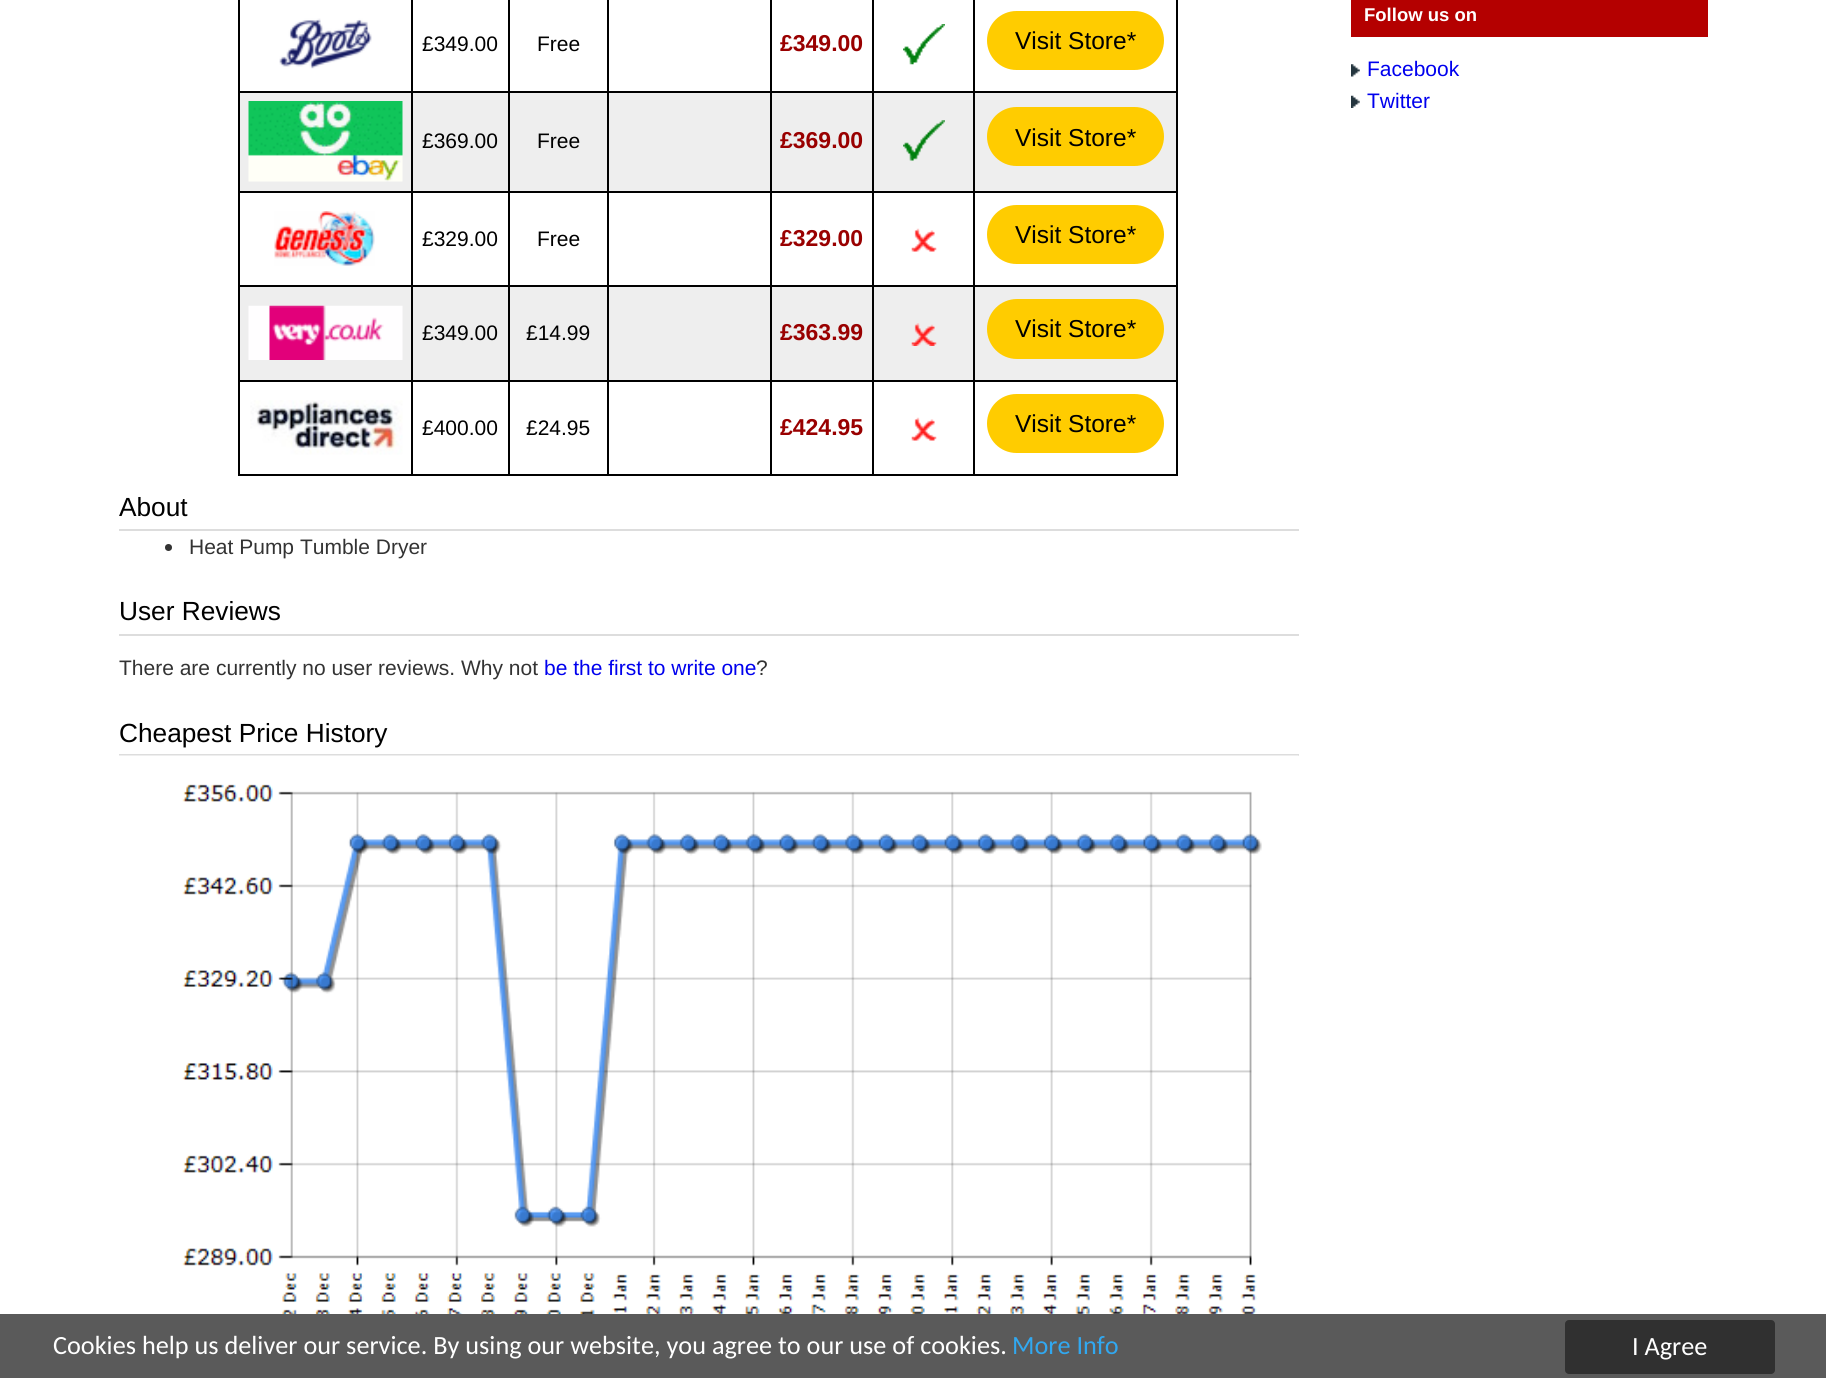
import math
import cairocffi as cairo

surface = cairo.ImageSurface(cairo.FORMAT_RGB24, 1826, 1378)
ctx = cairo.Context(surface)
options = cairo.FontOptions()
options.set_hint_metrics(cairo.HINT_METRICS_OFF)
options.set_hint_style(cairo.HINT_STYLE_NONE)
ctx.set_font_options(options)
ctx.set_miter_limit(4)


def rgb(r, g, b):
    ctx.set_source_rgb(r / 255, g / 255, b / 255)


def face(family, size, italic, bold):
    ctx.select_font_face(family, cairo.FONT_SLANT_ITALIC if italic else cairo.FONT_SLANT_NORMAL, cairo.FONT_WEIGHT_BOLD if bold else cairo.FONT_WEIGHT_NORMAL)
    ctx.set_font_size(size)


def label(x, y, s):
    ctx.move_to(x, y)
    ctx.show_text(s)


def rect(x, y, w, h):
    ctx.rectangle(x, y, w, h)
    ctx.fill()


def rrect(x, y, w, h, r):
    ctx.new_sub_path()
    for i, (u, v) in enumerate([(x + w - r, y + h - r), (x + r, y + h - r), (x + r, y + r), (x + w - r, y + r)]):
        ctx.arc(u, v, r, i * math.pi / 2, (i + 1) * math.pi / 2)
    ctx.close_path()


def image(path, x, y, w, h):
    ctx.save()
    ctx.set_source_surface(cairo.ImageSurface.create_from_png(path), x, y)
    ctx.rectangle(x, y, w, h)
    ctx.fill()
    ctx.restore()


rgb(255, 255, 255)
ctx.paint()
rgb(0, 0, 0)
rect(1176, 0, 2, 476)
rect(238, 474, 940, 2)
rect(238, 0, 2, 476)
image('image0.png', 279, 18, 93, 51)
rect(973, 91, 205, 2)
rgb(238, 238, 238)
rect(240, 93, 936, 98)
rgb(0, 0, 0)
rect(973, 191, 205, 2)
rect(973, 285, 205, 2)
rgb(238, 238, 238)
rect(240, 287, 936, 93)
rgb(0, 0, 0)
rect(973, 380, 205, 2)
rect(973, 380, 2, 96)
rect(872, 380, 103, 2)
rect(973, 285, 2, 97)
rect(872, 285, 103, 2)
rect(973, 191, 2, 96)
rect(872, 191, 103, 2)
rect(973, 91, 2, 102)
rect(872, 91, 103, 2)
rect(872, 380, 2, 96)
rect(770, 380, 103, 2)
rect(872, 285, 2, 97)
rect(770, 285, 103, 2)
rect(872, 191, 2, 96)
rect(770, 191, 103, 2)
rect(872, 91, 2, 102)
rect(770, 91, 103, 2)
rect(770, 380, 2, 96)
rect(607, 380, 165, 2)
rect(770, 285, 2, 97)
rect(607, 285, 165, 2)
rect(770, 191, 2, 96)
rect(607, 191, 165, 2)
rect(770, 91, 2, 102)
rect(607, 91, 165, 2)
rect(607, 380, 2, 96)
rect(508, 380, 101, 2)
rect(607, 285, 2, 97)
rect(508, 285, 101, 2)
rect(607, 191, 2, 96)
rect(508, 191, 101, 2)
rect(607, 91, 2, 102)
rect(508, 91, 101, 2)
rect(508, 380, 2, 96)
rect(411, 380, 98, 2)
rect(508, 285, 2, 97)
rect(411, 285, 98, 2)
rect(508, 191, 2, 96)
rect(411, 191, 98, 2)
rect(508, 91, 2, 102)
rect(411, 91, 98, 2)
rect(411, 380, 2, 96)
rect(238, 380, 175, 2)
rect(411, 285, 2, 97)
rect(238, 285, 175, 2)
rect(411, 191, 2, 96)
rect(238, 191, 175, 2)
rect(411, 91, 2, 102)
rect(238, 91, 175, 2)
rect(411, 0, 2, 93)
face('Liberation Sans', 21, 0, 0)
label(422, 51, '£349.00')
rect(508, 0, 2, 93)
label(537, 51, 'Free')
rect(607, 0, 2, 93)
rect(770, 0, 2, 93)
face('Liberation Sans', 23, 0, 1)
rgb(153, 0, 0)
label(780, 51, '£349.00')
rgb(0, 0, 0)
rect(872, 0, 2, 93)
image('image1.png', 903, 24, 42, 41)
rect(973, 0, 2, 93)
rgb(255, 204, 0)
rrect(987, 11, 177, 59, 29.5)
ctx.fill()
face('Liberation Sans', 24.5, 0, 0)
rgb(0, 0, 0)
label(1015, 49, 'Visit Store*')
image('image2.png', 248, 101, 155, 81)
face('Liberation Sans', 21, 0, 0)
label(422, 148, '£369.00')
label(537, 148, 'Free')
face('Liberation Sans', 23, 0, 1)
rgb(153, 0, 0)
label(780, 148, '£369.00')
image('image3.png', 903, 120, 42, 41)
rgb(255, 204, 0)
rrect(987, 107, 177, 59, 29.5)
ctx.fill()
face('Liberation Sans', 24.5, 0, 0)
rgb(0, 0, 0)
label(1015, 146, 'Visit Store*')
image('image4.png', 274, 211, 101, 55)
face('Liberation Sans', 21, 0, 0)
label(422, 246, '£329.00')
label(537, 246, 'Free')
face('Liberation Sans', 23, 0, 1)
rgb(153, 0, 0)
label(780, 246, '£329.00')
image('image5.png', 911, 228, 26, 24)
rgb(255, 204, 0)
rrect(987, 205, 177, 59, 29.5)
ctx.fill()
face('Liberation Sans', 24.5, 0, 0)
rgb(0, 0, 0)
label(1015, 243, 'Visit Store*')
image('image6.png', 248, 305, 155, 55)
face('Liberation Sans', 21, 0, 0)
label(422, 340, '£349.00')
label(526, 340, '£14.99')
face('Liberation Sans', 23, 0, 1)
rgb(153, 0, 0)
label(780, 340, '£363.99')
image('image7.png', 911, 323, 26, 23)
rgb(255, 204, 0)
rrect(987, 299, 177, 60, 30)
ctx.fill()
face('Liberation Sans', 24.5, 0, 0)
rgb(0, 0, 0)
label(1015, 337, 'Visit Store*')
image('image8.png', 250, 400, 153, 55)
face('Liberation Sans', 21, 0, 0)
label(422, 435, '£400.00')
label(526, 435, '£24.95')
face('Liberation Sans', 23, 0, 1)
rgb(153, 0, 0)
label(780, 435, '£424.95')
image('image5.png', 911, 417, 26, 24)
rgb(255, 204, 0)
rrect(987, 394, 177, 59, 29.5)
ctx.fill()
face('Liberation Sans', 24.5, 0, 0)
rgb(0, 0, 0)
label(1015, 432, 'Visit Store*')
rgb(221, 221, 221)
rect(119, 529, 1180, 2)
face('Liberation Sans', 26.25, 0, 0)
rgb(0, 0, 0)
label(119, 516, 'About')
rgb(51, 51, 51)
ctx.new_path()
ctx.arc(168.5, 547.5, 3.5, 0, 2 * math.pi)
ctx.fill()
face('Liberation Sans', 21, 0, 0)
label(189, 554, 'Heat Pump Tumble Dryer')
rgb(221, 221, 221)
rect(119, 634, 1180, 2)
face('Liberation Sans', 26.25, 0, 0)
rgb(0, 0, 0)
label(119, 620, 'User Reviews')
face('Liberation Sans', 21, 0, 0)
rgb(51, 51, 51)
label(119, 675, 'There are currently no user reviews. Why not')
rgb(0, 0, 238)
label(544, 675, 'be the first to write one')
rgb(51, 51, 51)
label(756, 675, '?')
rgb(221, 221, 221)
rect(119, 754, 1180, 2)
face('Liberation Sans', 26.25, 0, 0)
rgb(0, 0, 0)
label(119, 742, 'Cheapest Price History')
image('image9.png', 119, 755, 1180, 559)
rgb(180, 0, 0)
rect(1351, 0, 357, 37)
face('Liberation Sans', 18.5, 0, 1)
rgb(255, 255, 255)
label(1364, 21, 'Follow us on')
image('image10.png', 1351, 64, 9, 13)
face('Liberation Sans', 21, 0, 0)
rgb(0, 0, 238)
label(1367, 76, 'Facebook')
image('image11.png', 1351, 95, 9, 13)
label(1367, 108, 'Twitter')
rgb(90, 90, 90)
rect(0, 1314, 1826, 64)
face('Carlito', 26.25, 0, 0)
rgb(255, 255, 255)
label(53, 1354, 'Cookies help us deliver our service. By using our website, you agree to our use of cookies.')
rgb(49, 168, 240)
label(1012, 1354, 'More Info')
rgb(48, 48, 48)
rrect(1565, 1320, 210, 54, 4)
ctx.fill()
rgb(255, 255, 255)
label(1632, 1355, 'I Agree')
surface.write_to_png('render.png')
